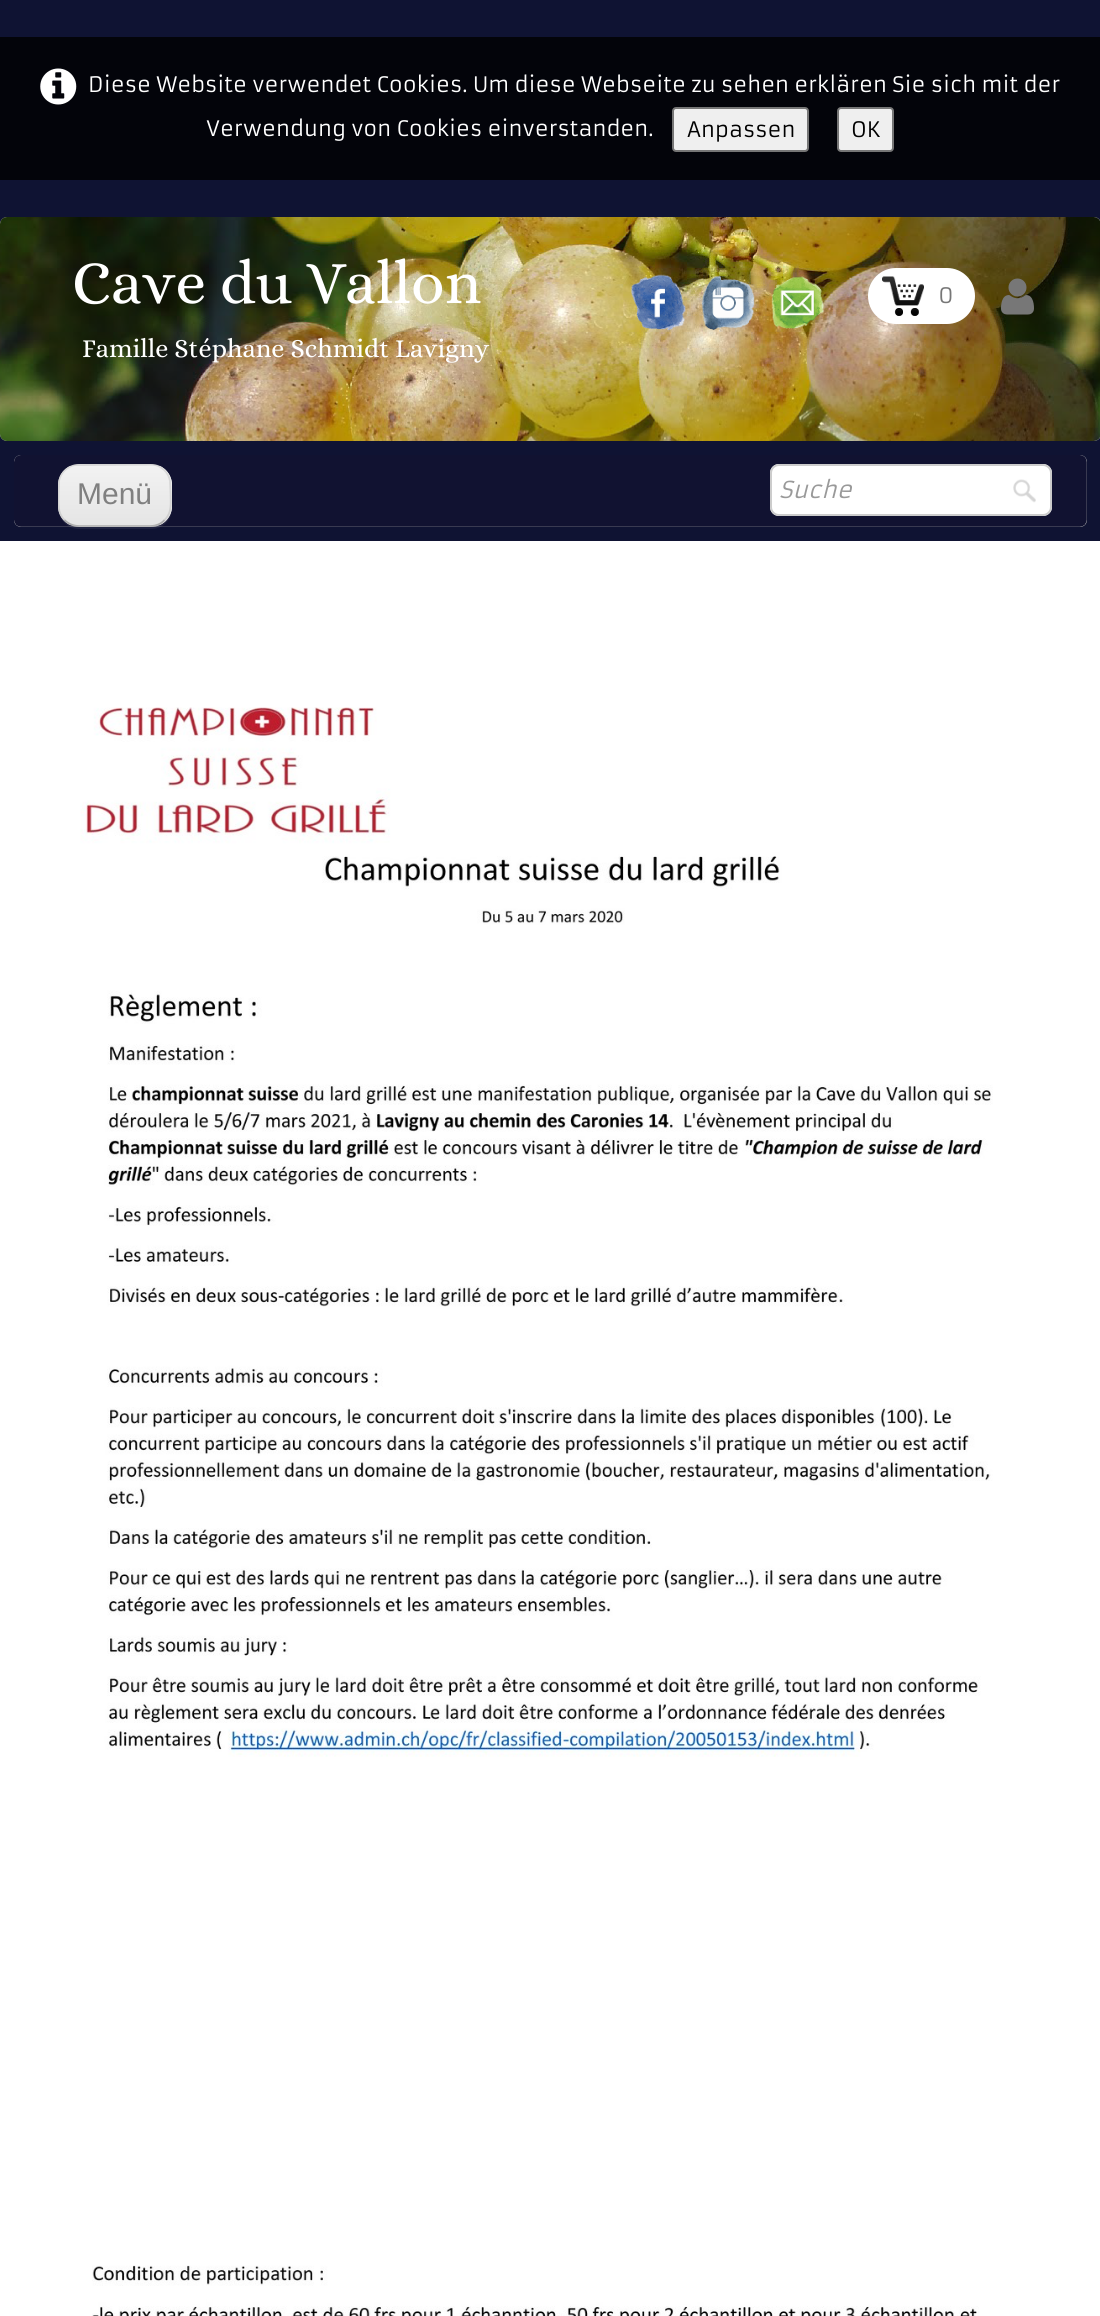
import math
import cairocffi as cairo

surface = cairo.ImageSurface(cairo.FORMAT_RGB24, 1100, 2316)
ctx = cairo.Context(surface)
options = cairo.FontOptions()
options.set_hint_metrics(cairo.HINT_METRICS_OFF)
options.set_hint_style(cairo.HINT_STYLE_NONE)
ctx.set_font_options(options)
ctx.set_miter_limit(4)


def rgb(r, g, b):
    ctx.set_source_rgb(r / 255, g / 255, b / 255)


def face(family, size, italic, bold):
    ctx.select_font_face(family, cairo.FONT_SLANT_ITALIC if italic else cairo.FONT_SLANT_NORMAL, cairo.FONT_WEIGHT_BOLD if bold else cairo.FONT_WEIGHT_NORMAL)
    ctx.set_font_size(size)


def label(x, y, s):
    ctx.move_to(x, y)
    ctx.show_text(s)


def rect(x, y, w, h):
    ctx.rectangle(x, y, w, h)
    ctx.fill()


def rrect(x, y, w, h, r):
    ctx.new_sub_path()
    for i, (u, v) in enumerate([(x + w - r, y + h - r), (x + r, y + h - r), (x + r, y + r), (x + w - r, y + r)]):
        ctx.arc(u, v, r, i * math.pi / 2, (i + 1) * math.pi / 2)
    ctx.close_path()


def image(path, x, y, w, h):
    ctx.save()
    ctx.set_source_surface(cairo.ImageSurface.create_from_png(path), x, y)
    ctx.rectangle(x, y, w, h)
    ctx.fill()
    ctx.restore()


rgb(15, 19, 51)
ctx.paint()
rgb(3, 4, 10)
rect(0, 37, 1100, 143)
image('image0.png', 40, 68, 37, 37)
face('Armata', 21, 0, 0)
rgb(255, 255, 255)
label(88, 92, 'Diese Website verwendet Cookies. Um diese Webseite zu sehen erklären Sie sich mit der')
label(206, 136, 'Verwendung von Cookies einverstanden.')
rgb(239, 239, 239)
rrect(673, 108, 135, 43, 3)
ctx.fill_preserve()
rgb(118, 118, 118)
ctx.stroke()
rgb(0, 0, 0)
label(687, 137, 'Anpassen')
rgb(239, 239, 239)
rrect(838, 108, 55, 43, 3)
ctx.fill_preserve()
rgb(118, 118, 118)
ctx.stroke()
rgb(0, 0, 0)
label(851, 137, 'OK')
rgb(181, 181, 181)
rrect(0, 217, 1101, 224, 7)
ctx.fill()
image('image1.png', 0, 217, 1100, 224)
face('Alice', 61.25, 0, 0)
rgb(255, 255, 255)
label(72, 303, 'Cave du Vallon')
face('Alice', 26.25, 0, 0)
label(82, 357, 'Famille Stéphane Schmidt Lavigny')
image('image2.png', 631, 274, 55, 57)
image('image3.png', 701, 275, 54, 55)
image('image4.png', 771, 276, 54, 53)
rrect(868, 268, 107, 56, 28)
ctx.fill()
image('image5.png', 882, 276, 42, 40)
face('Armata', 21, 0, 0)
rgb(119, 119, 119)
label(938, 303, '0')
image('image6.png', 1001, 278, 33, 37)
rgb(181, 181, 181)
rrect(14, 455, 1073, 72, 7)
ctx.fill()
image('image7.png', 14, 455, 1073, 72)
ctx.set_source_rgba(1, 1, 1, 0.07)
ctx.new_path()
ctx.move_to(58, 509)
ctx.curve_to(59, 520, 68, 529, 79, 529)
ctx.line_to(151, 529)
ctx.curve_to(163, 529, 172, 520, 172, 508)
ctx.line_to(172, 487)
ctx.line_to(171, 481)
ctx.line_to(172, 506)
ctx.curve_to(172, 517, 162, 527, 150, 527)
ctx.line_to(79, 527)
ctx.curve_to(68, 527, 60, 519, 58, 509)
ctx.close_path()
ctx.fill()
rgb(237, 237, 237)
rrect(58, 464, 114, 63, 21)
ctx.fill()
ctx.save()
rrect(58, 464, 114, 63, 21)
ctx.clip()
gradient = cairo.LinearGradient(115, 466, 115, 525)
gradient.add_color_stop_rgba(0, 0.949, 0.949, 0.949, 1)
gradient.add_color_stop_rgba(1, 0.898, 0.898, 0.898, 1)
ctx.set_source(gradient)
rect(58, 466, 114, 59)
ctx.restore()
ctx.new_path()
ctx.move_to(164.5, 520)
ctx.curve_to(161, 524, 156, 526, 150.5, 526)
ctx.line_to(79, 526)
ctx.curve_to(73.5, 526, 68.5, 524, 64.5, 520)
ctx.set_source_rgba(0, 0, 0, 0.25)
ctx.set_line_width(1.8)
ctx.stroke()
ctx.new_path()
ctx.move_to(64.5, 520)
ctx.curve_to(57.5, 513, 58.5, 504, 58.5, 495)
ctx.line_to(59, 481)
ctx.curve_to(60.5, 473, 67, 466.5, 75, 465)
ctx.line_to(152.5, 464.5)
ctx.curve_to(161, 465.5, 168.5, 472, 170, 481)
ctx.line_to(170.5, 492)
ctx.curve_to(170.5, 501.5, 172.5, 512.5, 164.5, 520)
ctx.set_source_rgba(0, 0, 0, 0.1)
ctx.stroke()
face('Liberation Sans', 30, 0, 0)
rgb(128, 128, 128)
label(77, 504, 'Menü')
rgb(255, 255, 255)
rrect(770, 464, 282, 52, 9)
ctx.fill()
image('image8.png', 1013, 479, 23, 24)
rrect(771, 465, 280, 50, 8)
rgb(204, 204, 204)
ctx.set_line_width(2)
ctx.stroke()
face('Armata', 23, 1, 0)
rgb(153, 153, 153)
label(779, 498, 'Suche')
rgb(255, 255, 255)
rect(0, 541, 1100, 1775)
image('image9.png', 80, 707, 913, 1050)
image('image10.png', 92, 2265, 887, 51)
surface.write_to_png('render.png')
